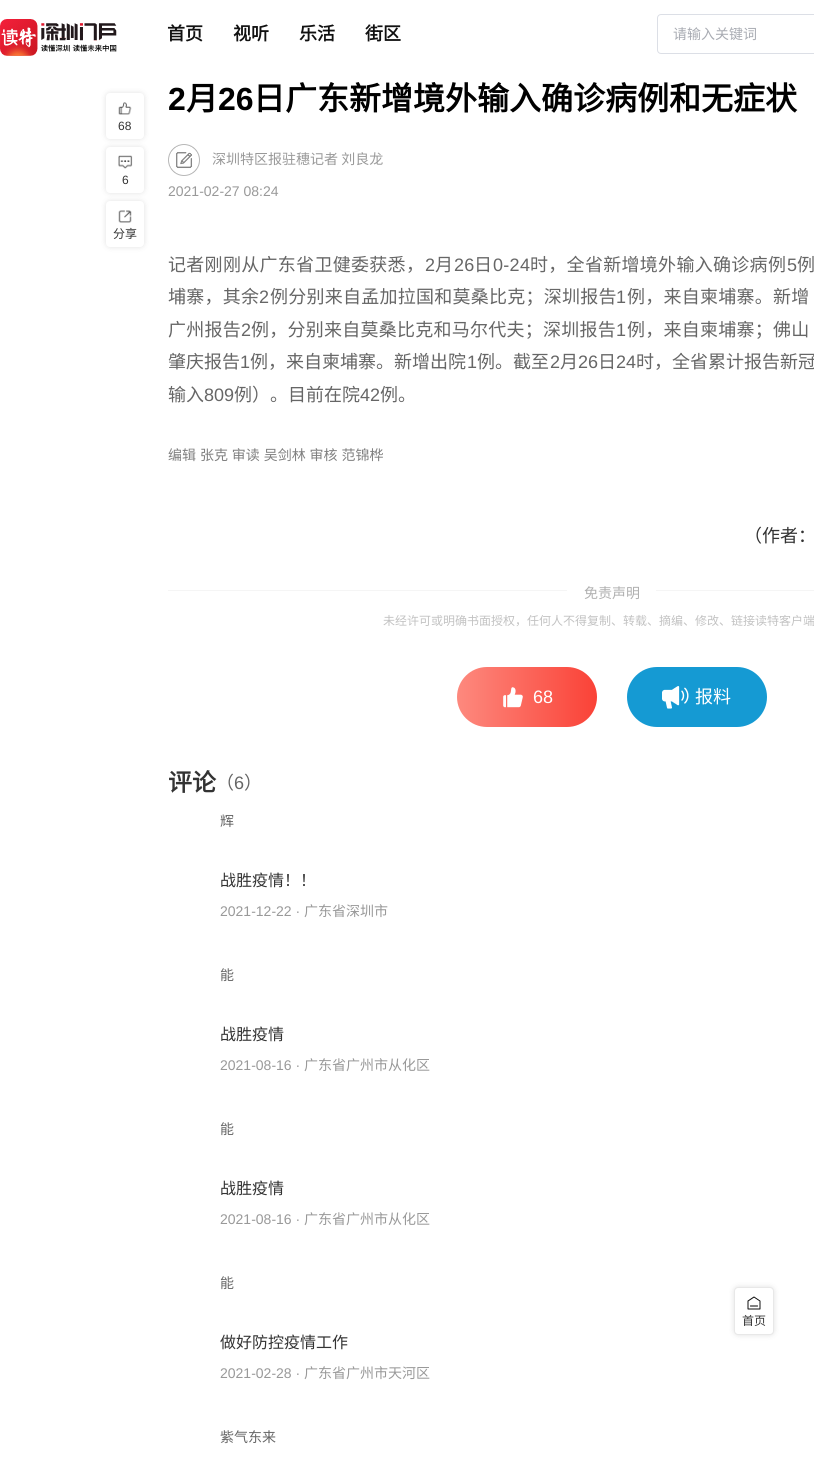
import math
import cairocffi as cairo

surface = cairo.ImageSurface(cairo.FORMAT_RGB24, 814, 1459)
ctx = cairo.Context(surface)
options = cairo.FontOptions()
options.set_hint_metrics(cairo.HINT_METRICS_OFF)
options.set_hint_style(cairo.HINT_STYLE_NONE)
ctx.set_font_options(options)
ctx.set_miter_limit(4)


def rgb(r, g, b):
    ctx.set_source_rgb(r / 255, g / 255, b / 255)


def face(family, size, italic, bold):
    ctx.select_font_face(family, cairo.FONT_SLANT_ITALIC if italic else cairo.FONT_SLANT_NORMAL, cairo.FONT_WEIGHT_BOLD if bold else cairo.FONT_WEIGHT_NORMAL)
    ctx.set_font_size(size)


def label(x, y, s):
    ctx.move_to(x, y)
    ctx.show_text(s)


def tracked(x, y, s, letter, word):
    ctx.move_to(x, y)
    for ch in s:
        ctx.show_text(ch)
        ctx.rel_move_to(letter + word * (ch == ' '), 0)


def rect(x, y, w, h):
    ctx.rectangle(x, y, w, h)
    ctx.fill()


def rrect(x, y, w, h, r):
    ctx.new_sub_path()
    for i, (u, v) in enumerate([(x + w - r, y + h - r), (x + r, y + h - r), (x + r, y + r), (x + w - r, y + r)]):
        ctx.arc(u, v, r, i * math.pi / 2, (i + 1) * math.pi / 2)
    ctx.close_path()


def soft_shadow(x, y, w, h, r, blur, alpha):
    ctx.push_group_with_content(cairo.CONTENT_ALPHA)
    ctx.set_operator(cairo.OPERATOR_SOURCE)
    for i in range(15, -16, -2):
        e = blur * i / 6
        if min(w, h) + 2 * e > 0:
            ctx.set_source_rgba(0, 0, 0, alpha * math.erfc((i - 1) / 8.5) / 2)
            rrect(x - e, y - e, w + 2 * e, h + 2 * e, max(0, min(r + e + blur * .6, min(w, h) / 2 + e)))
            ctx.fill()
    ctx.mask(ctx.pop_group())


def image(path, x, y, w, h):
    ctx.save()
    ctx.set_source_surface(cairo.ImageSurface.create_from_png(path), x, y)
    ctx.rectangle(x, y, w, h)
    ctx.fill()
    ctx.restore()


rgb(255, 255, 255)
ctx.paint()
image('image0.png', 0, 19, 117, 37)
face('Noto Sans CJK SC', 18, 0, 1)
rgb(17, 17, 17)
label(167, 40, '首页')
label(233, 40, '视听')
label(299, 40, '乐活')
label(365, 40, '街区')
rrect(657.5, 14.5, 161, 39, 3.5)
rgb(220, 223, 230)
ctx.set_line_width(1)
ctx.stroke()
face('Noto Sans CJK SC', 14, 0, 0)
rgb(168, 171, 178)
label(673, 39, '请输入关键词')
face('Liberation Sans', 32, 0, 1)
rgb(0, 0, 0)
label(168, 110, '2')
face('Noto Sans CJK SC', 32, 0, 1)
label(186, 110, '月')
face('Liberation Sans', 32, 0, 1)
label(218, 110, '26')
face('Noto Sans CJK SC', 32, 0, 1)
label(253, 110, '日广东新增境外输入确诊病例和无症状')
rgb(0, 0, 0)
soft_shadow(106, 93, 38, 46, 4, 3, 0.12)
rgb(255, 255, 255)
rrect(106, 93, 38, 46, 4)
ctx.fill()
image('image1.png', 118, 102, 14, 13)
face('Liberation Sans', 12, 0, 0)
rgb(51, 51, 51)
label(118, 130, '68')
rgb(0, 0, 0)
soft_shadow(106, 147, 38, 46, 4, 3, 0.12)
rgb(255, 255, 255)
rrect(106, 147, 38, 46, 4)
ctx.fill()
image('image2.png', 118, 155, 15, 14)
rgb(51, 51, 51)
label(122, 184, '6')
rgb(0, 0, 0)
soft_shadow(106, 201, 38, 46, 4, 3, 0.12)
rgb(255, 255, 255)
rrect(106, 201, 38, 46, 4)
ctx.fill()
image('image3.png', 118, 210, 14, 13)
face('Noto Sans CJK SC', 12, 0, 0)
rgb(51, 51, 51)
label(113, 238, '分享')
image('image4.png', 168, 144, 32, 32)
face('Noto Sans CJK SC', 14, 0, 0)
rgb(153, 153, 153)
label(212, 164, '深圳特区报驻穗记者 刘良龙')
face('Liberation Sans', 14, 0, 0)
label(168, 196, '2021-02-27 08:24')
face('Noto Sans CJK SC', 18, 0, 0)
rgb(102, 102, 102)
tracked(168, 271, '记者刚刚从广东省卫健委获悉，', 0.3, 0)
face('Liberation Sans', 18, 0, 0)
tracked(425, 271, '2', 0.3, 0)
face('Noto Sans CJK SC', 18, 0, 0)
tracked(435, 271, '月', 0.3, 0)
face('Liberation Sans', 18, 0, 0)
tracked(454, 271, '26', 0.3, 0)
face('Noto Sans CJK SC', 18, 0, 0)
tracked(474, 271, '日', 0.3, 0)
face('Liberation Sans', 18, 0, 0)
tracked(493, 271, '0-24', 0.3, 0)
face('Noto Sans CJK SC', 18, 0, 0)
tracked(530, 271, '时，全省新增境外输入确诊病例', 0.3, 0)
face('Liberation Sans', 18, 0, 0)
tracked(787, 271, '5', 0.3, 0)
face('Noto Sans CJK SC', 18, 0, 0)
tracked(797, 271, '例', 0.3, 0)
tracked(168, 303, '埔寨，其余', 0.25, 0)
face('Liberation Sans', 18, 0, 0)
tracked(259, 303, '2', 0.25, 0)
face('Noto Sans CJK SC', 18, 0, 0)
tracked(270, 303, '例分别来自孟加拉国和莫桑比克；深圳报告', 0.25, 0)
face('Liberation Sans', 18, 0, 0)
tracked(616, 303, '1', 0.25, 0)
face('Noto Sans CJK SC', 18, 0, 0)
tracked(627, 303, '例，来自柬埔寨。新增', 0.25, 0)
tracked(168, 336, '广州报告', 0.25, 0)
face('Liberation Sans', 18, 0, 0)
tracked(241, 336, '2', 0.25, 0)
face('Noto Sans CJK SC', 18, 0, 0)
tracked(251, 336, '例，分别来自莫桑比克和马尔代夫；深圳报告', 0.25, 0)
face('Liberation Sans', 18, 0, 0)
tracked(616, 336, '1', 0.25, 0)
face('Noto Sans CJK SC', 18, 0, 0)
tracked(627, 336, '例，来自柬埔寨；佛山', 0.25, 0)
label(168, 368, '肇庆报告')
face('Liberation Sans', 18, 0, 0)
label(240, 368, '1')
face('Noto Sans CJK SC', 18, 0, 0)
label(250, 368, '例，来自柬埔寨。新增出院')
face('Liberation Sans', 18, 0, 0)
label(467, 368, '1')
face('Noto Sans CJK SC', 18, 0, 0)
label(477, 368, '例。截至')
face('Liberation Sans', 18, 0, 0)
label(550, 368, '2')
face('Noto Sans CJK SC', 18, 0, 0)
label(560, 368, '月')
face('Liberation Sans', 18, 0, 0)
label(578, 368, '26')
face('Noto Sans CJK SC', 18, 0, 0)
label(598, 368, '日')
face('Liberation Sans', 18, 0, 0)
label(616, 368, '24')
face('Noto Sans CJK SC', 18, 0, 0)
label(636, 368, '时，全省累计报告新冠')
label(168, 401, '输入')
face('Liberation Sans', 18, 0, 0)
label(204, 401, '809')
face('Noto Sans CJK SC', 18, 0, 0)
label(234, 401, '例）。目前在院')
face('Liberation Sans', 18, 0, 0)
label(360, 401, '42')
face('Noto Sans CJK SC', 18, 0, 0)
label(380, 401, '例。')
face('Noto Sans CJK SC', 14, 0, 0)
rgb(127, 127, 127)
tracked(168, 460, '编辑 张克 审读 吴剑林 审核 范锦桦', 0, 0.75)
face('Noto Sans CJK SC', 18, 0, 0)
rgb(51, 51, 51)
tracked(744, 542, '（作者：', 0, 1)
rgb(245, 245, 245)
rect(168, 590, 399, 1)
face('Noto Sans CJK SC', 14, 0, 0)
rgb(175, 175, 175)
label(584, 598, '免责声明')
rgb(245, 245, 245)
rect(656, 590, 158, 1)
face('Noto Sans CJK SC', 12, 0, 0)
rgb(194, 194, 194)
label(383, 625, '未经许可或明确书面授权，任何人不得复制、转载、摘编、修改、链接读特客户端')
gradient = cairo.LinearGradient(597, 697, 457, 697)
gradient.add_color_stop_rgba(0, 0.98, 0.259, 0.216, 1)
gradient.add_color_stop_rgba(1, 0.992, 0.537, 0.494, 1)
ctx.set_source(gradient)
rrect(457, 667, 140, 60, 30)
ctx.fill()
image('image5.png', 503, 687, 20, 21)
face('Liberation Sans', 18, 0, 0)
rgb(255, 255, 255)
label(533, 703, '68')
rgb(21, 154, 211)
rrect(627, 667, 140, 60, 30)
ctx.fill()
image('image6.png', 662, 686, 27, 23)
face('Noto Sans CJK SC', 18, 0, 0)
rgb(255, 255, 255)
label(695, 703, '报料')
face('Noto Sans CJK SC', 24, 0, 1)
rgb(51, 51, 51)
label(168, 791, '评论')
face('Noto Sans CJK SC', 18, 0, 0)
rgb(102, 102, 102)
label(216, 789, '（')
face('Liberation Sans', 18, 0, 0)
label(234, 789, '6')
face('Noto Sans CJK SC', 18, 0, 0)
label(244, 789, '）')
face('Noto Sans CJK SC', 14, 0, 0)
label(220, 826, '辉')
face('Noto Sans CJK SC', 16, 0, 0)
rgb(51, 51, 51)
label(220, 886, '战胜疫情！！')
face('Liberation Sans', 14, 0, 0)
rgb(153, 153, 153)
label(220, 916, '2021-12-22 ·')
face('Noto Sans CJK SC', 14, 0, 0)
label(304, 916, '广东省深圳市')
rgb(102, 102, 102)
label(220, 980, '能')
face('Noto Sans CJK SC', 16, 0, 0)
rgb(51, 51, 51)
label(220, 1040, '战胜疫情')
face('Liberation Sans', 14, 0, 0)
rgb(153, 153, 153)
label(220, 1070, '2021-08-16 ·')
face('Noto Sans CJK SC', 14, 0, 0)
label(304, 1070, '广东省广州市从化区')
rgb(102, 102, 102)
label(220, 1134, '能')
face('Noto Sans CJK SC', 16, 0, 0)
rgb(51, 51, 51)
label(220, 1194, '战胜疫情')
face('Liberation Sans', 14, 0, 0)
rgb(153, 153, 153)
label(220, 1224, '2021-08-16 ·')
face('Noto Sans CJK SC', 14, 0, 0)
label(304, 1224, '广东省广州市从化区')
rgb(102, 102, 102)
label(220, 1288, '能')
face('Noto Sans CJK SC', 16, 0, 0)
rgb(51, 51, 51)
label(220, 1348, '做好防控疫情工作')
face('Liberation Sans', 14, 0, 0)
rgb(153, 153, 153)
label(220, 1378, '2021-02-28 ·')
face('Noto Sans CJK SC', 14, 0, 0)
label(304, 1378, '广东省广州市天河区')
rgb(102, 102, 102)
label(220, 1442, '紫气东来')
rgb(0, 0, 0)
soft_shadow(734, 1287, 40, 48, 4, 3, 0.12)
rgb(255, 255, 255)
rrect(734.5, 1287.5, 39, 47, 3.5)
ctx.fill_preserve()
rgb(232, 232, 232)
ctx.stroke()
image('image7.png', 747, 1296, 14, 14)
face('Noto Sans CJK SC', 12, 0, 0)
rgb(51, 51, 51)
label(742, 1325, '首页')
surface.write_to_png('render.png')
